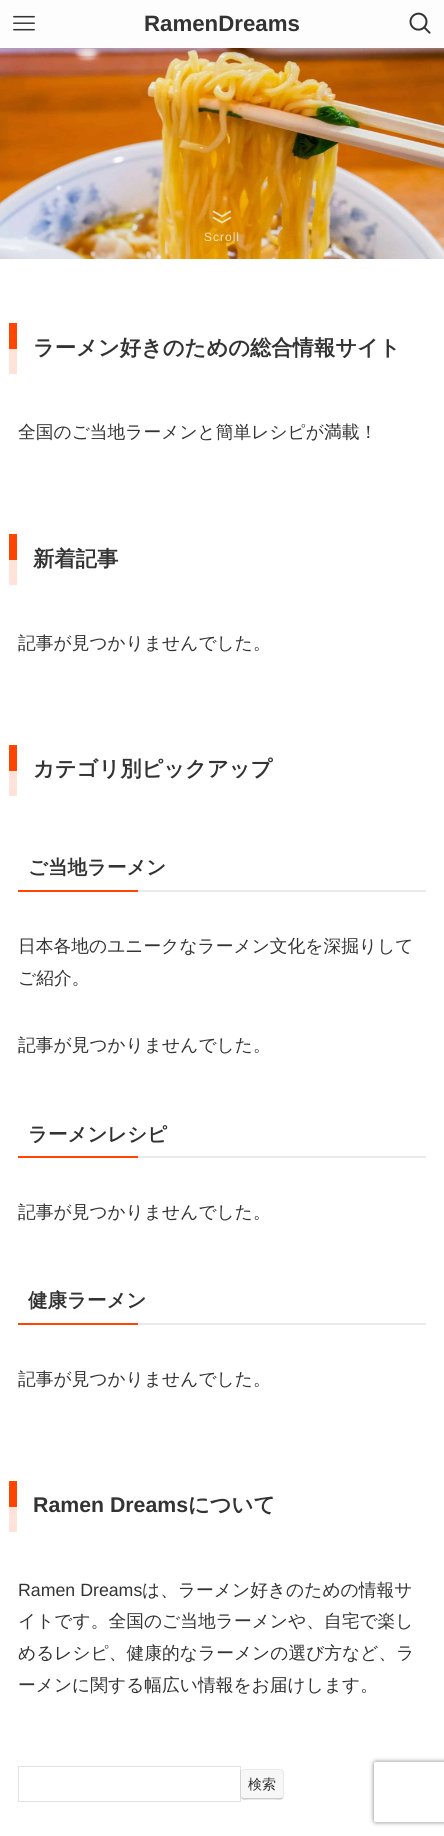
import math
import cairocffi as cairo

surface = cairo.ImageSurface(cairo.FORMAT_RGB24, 444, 1836)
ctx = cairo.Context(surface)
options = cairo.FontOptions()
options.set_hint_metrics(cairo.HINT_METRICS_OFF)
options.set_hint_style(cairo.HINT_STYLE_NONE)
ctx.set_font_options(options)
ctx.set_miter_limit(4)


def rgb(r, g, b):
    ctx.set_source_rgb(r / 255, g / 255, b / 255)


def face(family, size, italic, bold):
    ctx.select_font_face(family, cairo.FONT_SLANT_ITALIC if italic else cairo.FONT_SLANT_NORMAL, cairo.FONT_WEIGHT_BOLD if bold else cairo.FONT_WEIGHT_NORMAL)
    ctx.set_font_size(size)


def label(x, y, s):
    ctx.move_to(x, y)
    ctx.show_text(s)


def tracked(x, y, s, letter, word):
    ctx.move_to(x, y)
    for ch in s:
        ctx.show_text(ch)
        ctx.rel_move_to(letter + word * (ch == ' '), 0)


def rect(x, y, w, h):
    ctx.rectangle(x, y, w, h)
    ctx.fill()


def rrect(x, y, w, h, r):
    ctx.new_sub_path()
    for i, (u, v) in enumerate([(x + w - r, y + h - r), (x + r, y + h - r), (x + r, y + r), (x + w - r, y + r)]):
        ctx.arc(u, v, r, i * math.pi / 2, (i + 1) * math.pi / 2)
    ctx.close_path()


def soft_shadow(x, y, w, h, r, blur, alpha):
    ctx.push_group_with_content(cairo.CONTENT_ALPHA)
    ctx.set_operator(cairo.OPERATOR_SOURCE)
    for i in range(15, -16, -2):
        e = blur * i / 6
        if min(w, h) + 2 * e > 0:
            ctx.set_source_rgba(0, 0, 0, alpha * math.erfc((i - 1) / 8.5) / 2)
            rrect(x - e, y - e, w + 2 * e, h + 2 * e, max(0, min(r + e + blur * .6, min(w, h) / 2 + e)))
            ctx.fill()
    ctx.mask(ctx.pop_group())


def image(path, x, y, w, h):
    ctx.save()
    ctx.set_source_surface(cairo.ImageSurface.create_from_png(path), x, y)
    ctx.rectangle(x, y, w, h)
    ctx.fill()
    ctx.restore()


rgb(255, 255, 255)
ctx.paint()
image('image2.png', 0, 48, 444, 211)
rgb(0, 0, 0)
soft_shadow(0, 1, 444, 48, 0, 2, 0.12)
rgb(253, 253, 253)
rect(0, 0, 444, 48)
image('image0.png', 13, 15, 22, 16)
face('Liberation Sans', 22.25, 0, 1)
rgb(51, 51, 51)
label(144, 31, 'RamenDreams')
image('image1.png', 409, 12, 22, 22)
image('image3.png', 212, 210, 20, 14)
face('Liberation Sans', 12, 0, 0)
rgb(246, 227, 193)
tracked(204, 241, 'Scroll', 1, 0)
rgb(255, 69, 0)
rect(9, 323, 8, 26)
rgb(255, 227, 217)
rect(9, 349, 8, 25)
face('WenQuanYi Zen Hei', 21.3, 0, 1)
rgb(51, 51, 51)
label(33, 355, 'ラーメン好きのための総合情報サイト')
face('WenQuanYi Zen Hei Medium', 17.75, 0, 0)
label(18, 438, '全国のご当地ラーメンと簡単レシピが満載！')
rgb(255, 69, 0)
rect(9, 534, 8, 26)
rgb(255, 227, 217)
rect(9, 560, 8, 25)
face('WenQuanYi Zen Hei', 21.3, 0, 1)
rgb(51, 51, 51)
label(33, 566, '新着記事')
face('WenQuanYi Zen Hei Medium', 17.75, 0, 0)
label(18, 649, '記事が見つかりませんでした。')
rgb(255, 69, 0)
rect(9, 745, 8, 26)
rgb(255, 227, 217)
rect(9, 771, 8, 25)
face('WenQuanYi Zen Hei', 21.3, 0, 1)
rgb(51, 51, 51)
label(33, 776, 'カテゴリ別ピックアップ')
face('WenQuanYi Zen Hei', 19.5, 0, 1)
label(28, 874, 'ご当地ラーメン')
rgb(255, 69, 0)
rect(18, 890, 120, 2)
rgb(234, 234, 234)
rect(138, 890, 288, 2)
face('WenQuanYi Zen Hei Medium', 17.75, 0, 0)
rgb(51, 51, 51)
label(18, 952, '日本各地のユニークなラーメン文化を深掘りして')
label(18, 984, 'ご紹介。')
label(18, 1051, '記事が見つかりませんでした。')
face('WenQuanYi Zen Hei', 19.5, 0, 1)
label(28, 1141, 'ラーメンレシピ')
rgb(255, 69, 0)
rect(18, 1156, 120, 2)
rgb(234, 234, 234)
rect(138, 1156, 288, 2)
face('WenQuanYi Zen Hei Medium', 17.75, 0, 0)
rgb(51, 51, 51)
label(18, 1218, '記事が見つかりませんでした。')
face('WenQuanYi Zen Hei', 19.5, 0, 1)
label(28, 1307, '健康ラーメン')
rgb(255, 69, 0)
rect(18, 1323, 120, 2)
rgb(234, 234, 234)
rect(138, 1323, 288, 2)
face('WenQuanYi Zen Hei Medium', 17.75, 0, 0)
rgb(51, 51, 51)
label(18, 1385, '記事が見つかりませんでした。')
rgb(255, 69, 0)
rect(9, 1481, 8, 26)
rgb(255, 227, 217)
rect(9, 1507, 8, 25)
face('Liberation Sans', 21.3, 0, 1)
rgb(51, 51, 51)
label(33, 1512, 'Ramen Dreams')
face('WenQuanYi Zen Hei', 21.3, 0, 1)
label(188, 1512, 'について')
face('Liberation Sans', 17.75, 0, 0)
label(18, 1596, 'Ramen Dreams')
face('WenQuanYi Zen Hei Medium', 17.75, 0, 0)
label(142, 1596, 'は、ラーメン好きのための情報サ')
label(18, 1627, 'イトです。全国のご当地ラーメンや、自宅で楽し')
label(18, 1659, 'めるレシピ、健康的なラーメンの選び方など、ラ')
label(18, 1691, 'ーメンに関する幅広い情報をお届けします。')
ctx.rectangle(18.5, 1766.5, 222, 35)
rgb(227, 227, 227)
ctx.set_line_width(1)
ctx.stroke()
rgb(170, 170, 170)
soft_shadow(241, 1770, 42, 29, 2, 0.5, 1)
rgb(247, 247, 247)
rrect(241, 1770, 42, 29, 2)
ctx.fill()
rgb(204, 204, 204)
ctx.new_path()
ctx.move_to(241, 1796)
ctx.curve_to(241, 1801, 246, 1799, 249, 1799)
ctx.line_to(275, 1799)
ctx.curve_to(278, 1799, 283, 1801, 283, 1796)
ctx.curve_to(283, 1797, 282, 1798, 281, 1798)
ctx.line_to(243, 1798)
ctx.curve_to(242, 1798, 241, 1797, 241, 1796)
ctx.close_path()
ctx.fill()
face('WenQuanYi Zen Hei Medium', 14, 0, 0)
rgb(51, 51, 51)
label(248, 1789, '検索')
ctx.save()
ctx.set_fill_rule(cairo.FILL_RULE_EVEN_ODD)
ctx.new_path()
ctx.move_to(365, 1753)
ctx.line_to(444, 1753)
ctx.line_to(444, 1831)
ctx.line_to(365, 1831)
ctx.close_path()
ctx.move_to(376, 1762)
ctx.line_to(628, 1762)
ctx.curve_to(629, 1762, 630, 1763, 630, 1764)
ctx.line_to(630, 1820)
ctx.curve_to(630, 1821, 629, 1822, 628, 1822)
ctx.line_to(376, 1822)
ctx.curve_to(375, 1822, 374, 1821, 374, 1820)
ctx.line_to(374, 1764)
ctx.curve_to(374, 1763, 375, 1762, 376, 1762)
ctx.close_path()
ctx.clip()
rgb(128, 128, 128)
soft_shadow(374, 1762, 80, 60, 2, 2.5, 1)
ctx.restore()
surface.write_to_png('render.png')
